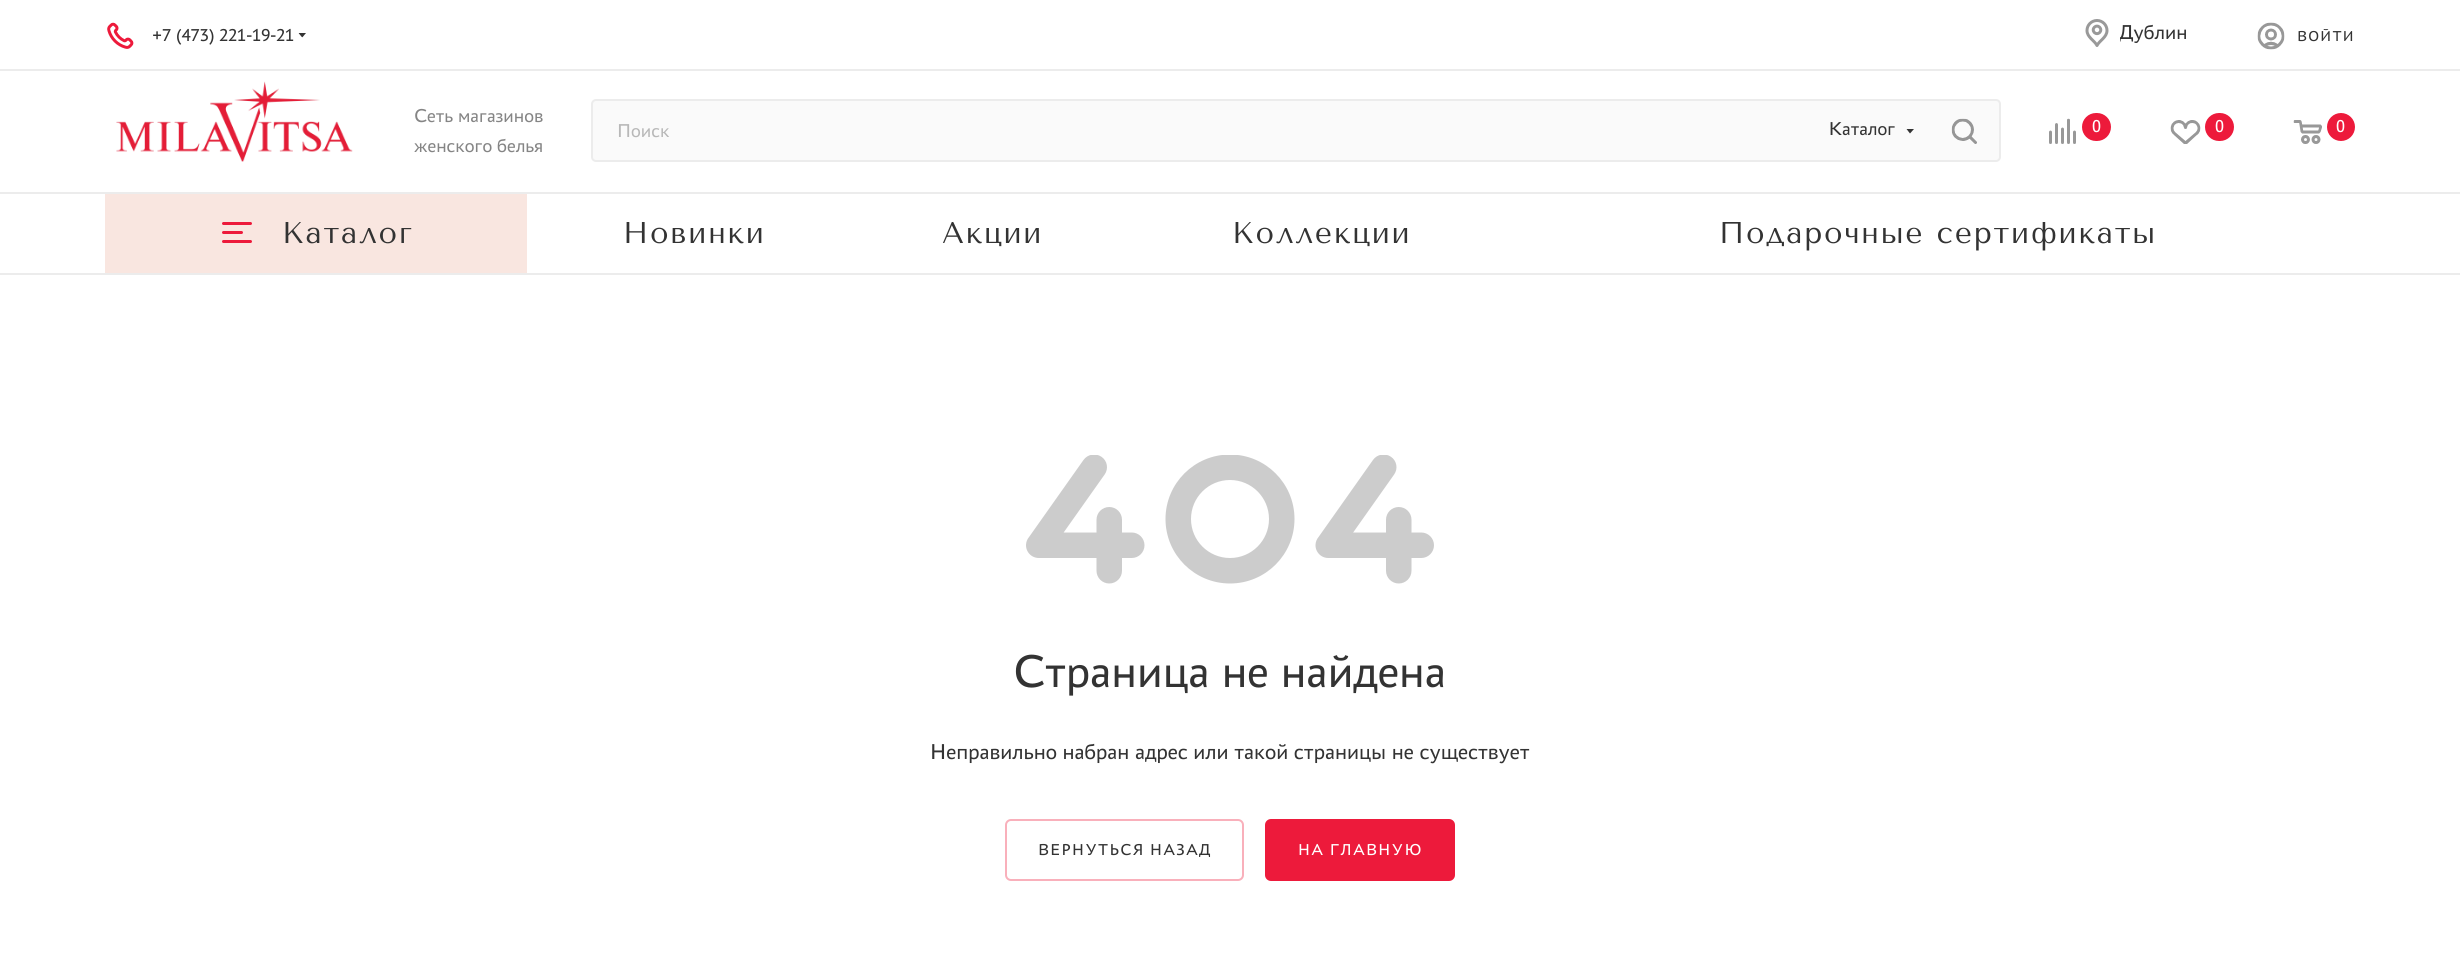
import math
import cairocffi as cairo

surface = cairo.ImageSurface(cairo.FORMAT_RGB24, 2460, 956)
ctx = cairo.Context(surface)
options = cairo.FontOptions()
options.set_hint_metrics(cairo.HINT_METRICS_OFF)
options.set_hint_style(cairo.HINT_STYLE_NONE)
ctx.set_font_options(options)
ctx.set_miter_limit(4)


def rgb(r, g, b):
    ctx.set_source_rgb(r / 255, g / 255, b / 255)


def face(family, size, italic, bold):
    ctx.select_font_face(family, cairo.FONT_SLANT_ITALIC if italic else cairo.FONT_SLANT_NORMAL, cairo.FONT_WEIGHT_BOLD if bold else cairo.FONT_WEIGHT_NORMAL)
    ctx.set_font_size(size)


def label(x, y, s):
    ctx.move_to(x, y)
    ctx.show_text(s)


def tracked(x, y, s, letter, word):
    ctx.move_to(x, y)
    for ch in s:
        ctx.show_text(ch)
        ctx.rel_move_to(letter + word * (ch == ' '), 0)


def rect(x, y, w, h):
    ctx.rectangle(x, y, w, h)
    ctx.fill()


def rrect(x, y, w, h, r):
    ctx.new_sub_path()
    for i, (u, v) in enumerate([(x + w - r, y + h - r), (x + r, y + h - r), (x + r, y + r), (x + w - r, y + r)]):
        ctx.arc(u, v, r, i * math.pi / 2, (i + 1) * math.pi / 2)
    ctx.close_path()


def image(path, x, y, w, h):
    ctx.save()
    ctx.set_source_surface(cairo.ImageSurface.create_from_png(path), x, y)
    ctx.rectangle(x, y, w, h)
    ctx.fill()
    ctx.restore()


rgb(255, 255, 255)
ctx.paint()
rgb(236, 236, 236)
rect(0, 69, 2460, 2)
image('image0.png', 107, 22, 27, 27)
face('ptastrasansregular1', 18, 0, 0)
rgb(51, 51, 51)
label(152, 41, '+7 (473) 221-19-21')
image('image1.png', 298, 33, 8, 5)
image('image2.png', 2085, 19, 24, 28)
ctx.save()
ctx.rectangle(2120, 18, 90, 30)
ctx.clip()
face('ptastrasansregular1', 21, 0, 0)
label(2119, 39, 'Дублин')
ctx.restore()
image('image3.png', 2257, 22, 28, 28)
ctx.save()
ctx.rectangle(2285, 29, 70, 18)
ctx.clip()
face('ptastrasansregular1', 15, 0, 0)
tracked(2297, 41, 'ВОЙТИ', 1.25, 0)
ctx.restore()
rgb(236, 236, 236)
rect(0, 192, 2460, 2)
image('image4.png', 116, 81, 237, 81)
face('ptastrasansregular1', 19.5, 0, 0)
rgb(133, 133, 133)
label(414, 122, 'Сеть магазинов')
label(414, 152, 'женского белья')
rgb(250, 250, 250)
rrect(592, 100, 1408, 61, 4)
ctx.fill_preserve()
rgb(236, 236, 236)
ctx.stroke()
rgb(184, 184, 184)
label(617, 137, 'Поиск')
rgb(51, 51, 51)
label(1829, 135, 'Каталог')
ctx.set_fill_rule(cairo.FILL_RULE_EVEN_ODD)
ctx.new_path()
ctx.move_to(1906.5, 129)
ctx.line_to(1914, 129)
ctx.line_to(1910, 133.5)
ctx.close_path()
ctx.fill()
image('image5.png', 1951, 118, 26, 26)
image('image6.png', 2049, 118, 27, 26)
rgb(237, 26, 59)
rrect(2082, 113, 29, 28, 14)
ctx.fill()
face('ptastrasansregular1', 18, 0, 0)
rgb(255, 255, 255)
label(2092, 132, '0')
image('image7.png', 2170, 120, 31, 24)
rgb(237, 26, 59)
rrect(2205, 113, 29, 28, 14)
ctx.fill()
rgb(255, 255, 255)
label(2215, 132, '0')
image('image8.png', 2293, 120, 29, 24)
rgb(237, 26, 59)
ctx.arc(2341, 127, 14, 0, 2 * math.pi)
ctx.fill()
rgb(255, 255, 255)
label(2336, 132, '0')
rgb(236, 236, 236)
rect(0, 273, 2460, 2)
rgb(249, 230, 224)
rect(105, 194, 422, 79)
ctx.new_path()
ctx.move_to(223.5, 232.5)
ctx.line_to(241.5, 232.5)
ctx.move_to(223.5, 223.5)
ctx.line_to(250.5, 223.5)
ctx.move_to(223.5, 241.5)
ctx.line_to(250.5, 241.5)
rgb(237, 26, 59)
ctx.set_line_width(3)
ctx.set_line_cap(cairo.LINE_CAP_ROUND)
ctx.set_line_join(cairo.LINE_JOIN_ROUND)
ctx.stroke()
face('Tenor Sans', 30, 0, 0)
rgb(51, 51, 51)
tracked(282, 243, 'Каталог', 1.8, 0)
tracked(623, 243, 'Новинки', 1.8, 0)
tracked(942, 243, 'Акции', 1.8, 0)
tracked(1232, 243, 'Коллекции', 1.8, 0)
tracked(1719, 243, 'Подарочные сертификаты', 1.8, 0)
image('image9.png', 1026, 455, 408, 129)
face('ptastrasansregular1', 48, 0, 0)
label(1013, 687, 'Страница не найдена')
face('ptastrasansregular1', 22.5, 0, 0)
label(930, 759, 'Неправильно набран адрес или такой страницы не существует')
rrect(1006, 820, 237, 60, 5)
rgb(249, 176, 187)
ctx.set_line_width(2)
ctx.set_line_cap(cairo.LINE_CAP_BUTT)
ctx.set_line_join(cairo.LINE_JOIN_MITER)
ctx.stroke()
face('ptastrasansregular1', 16.5, 0, 0)
rgb(51, 51, 51)
tracked(1038, 855, 'ВЕРНУТЬСЯ НАЗАД', 1.25, 0)
rgb(237, 26, 59)
rrect(1266, 820, 188, 60, 5)
ctx.fill_preserve()
ctx.stroke()
rgb(255, 255, 255)
tracked(1298, 855, 'НА ГЛАВНУЮ', 1.25, 0)
surface.write_to_png('render.png')
